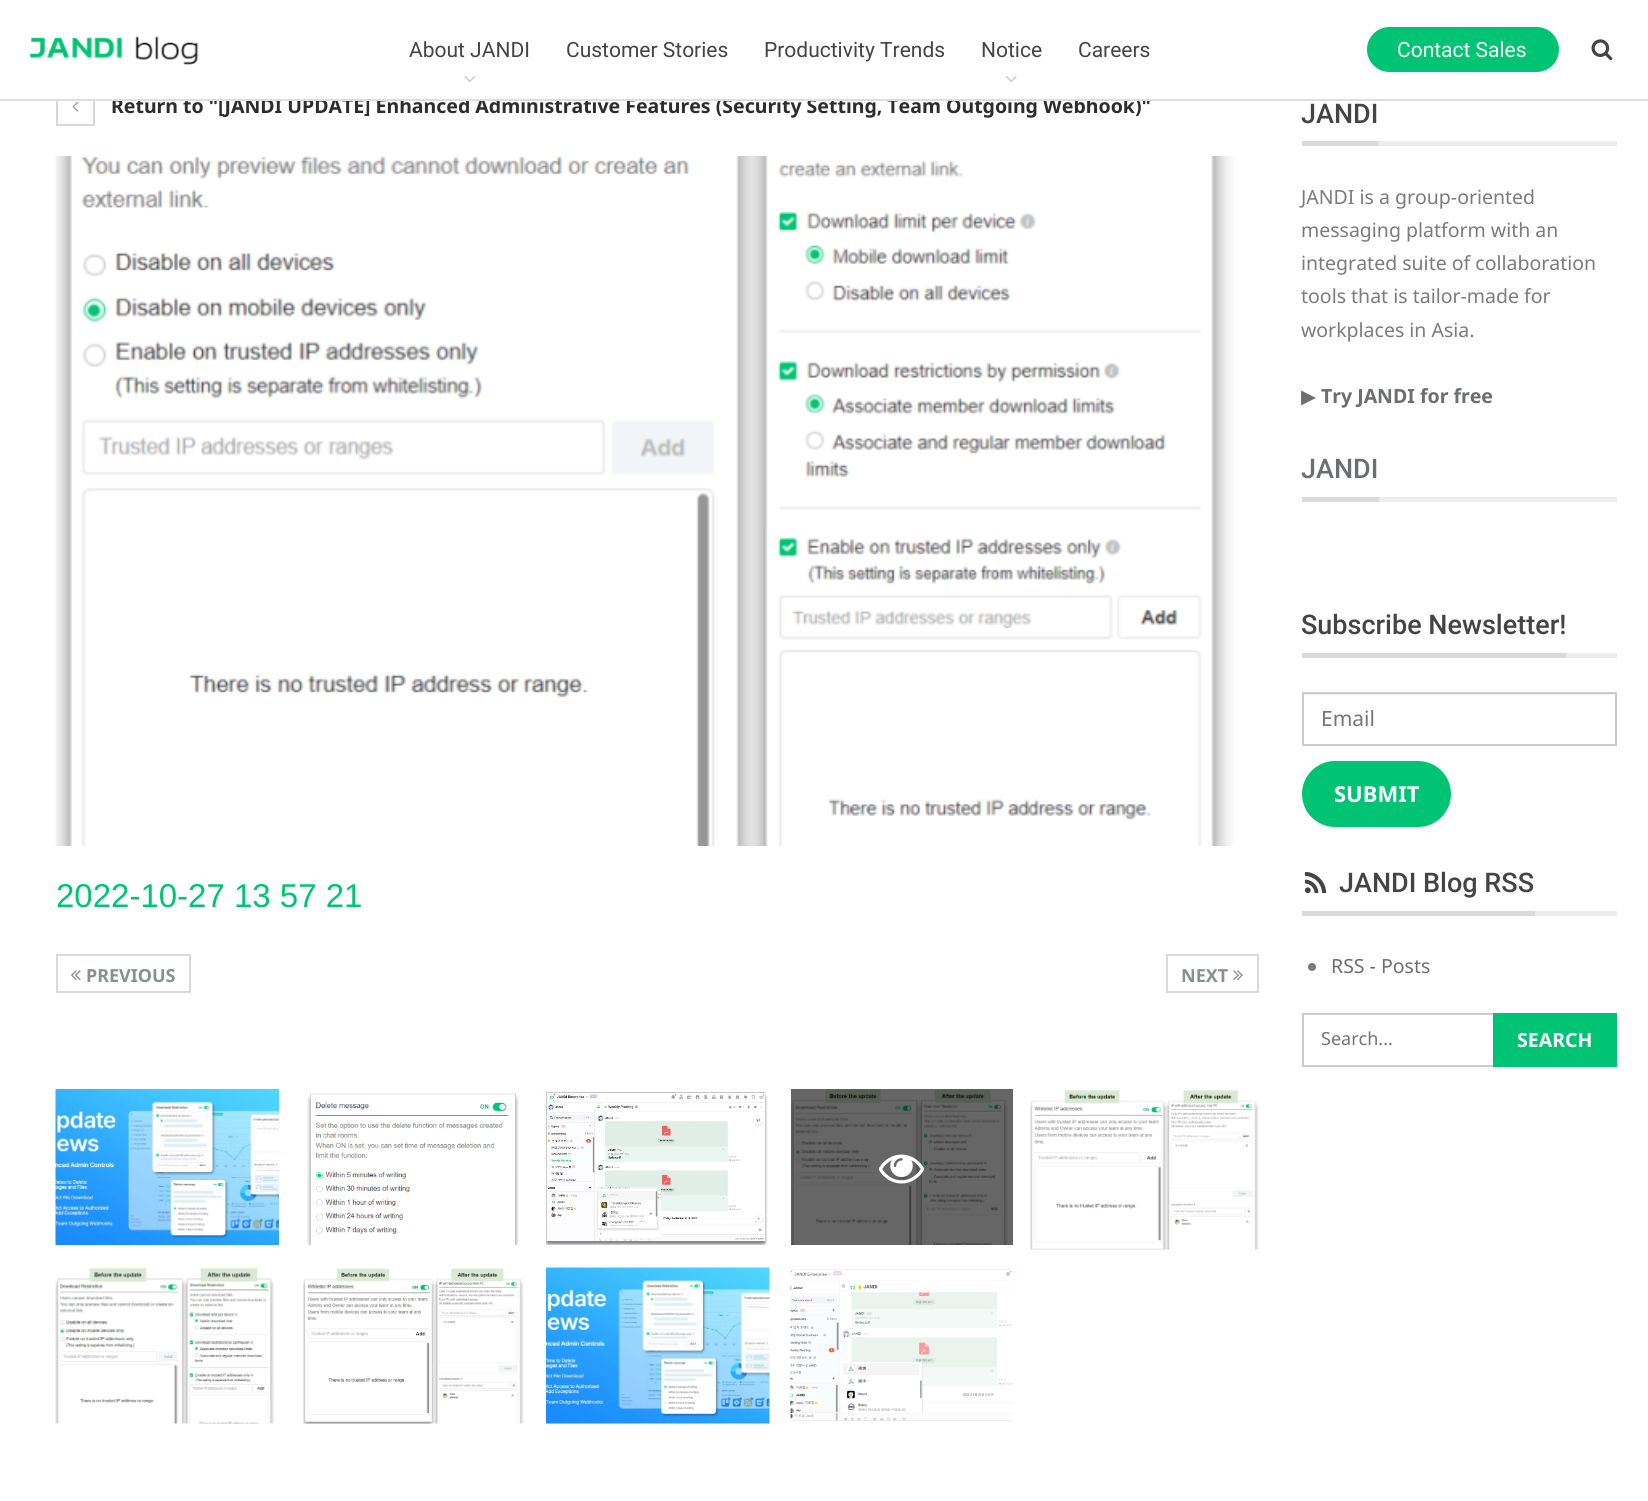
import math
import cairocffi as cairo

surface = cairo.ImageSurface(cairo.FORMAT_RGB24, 1648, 1501)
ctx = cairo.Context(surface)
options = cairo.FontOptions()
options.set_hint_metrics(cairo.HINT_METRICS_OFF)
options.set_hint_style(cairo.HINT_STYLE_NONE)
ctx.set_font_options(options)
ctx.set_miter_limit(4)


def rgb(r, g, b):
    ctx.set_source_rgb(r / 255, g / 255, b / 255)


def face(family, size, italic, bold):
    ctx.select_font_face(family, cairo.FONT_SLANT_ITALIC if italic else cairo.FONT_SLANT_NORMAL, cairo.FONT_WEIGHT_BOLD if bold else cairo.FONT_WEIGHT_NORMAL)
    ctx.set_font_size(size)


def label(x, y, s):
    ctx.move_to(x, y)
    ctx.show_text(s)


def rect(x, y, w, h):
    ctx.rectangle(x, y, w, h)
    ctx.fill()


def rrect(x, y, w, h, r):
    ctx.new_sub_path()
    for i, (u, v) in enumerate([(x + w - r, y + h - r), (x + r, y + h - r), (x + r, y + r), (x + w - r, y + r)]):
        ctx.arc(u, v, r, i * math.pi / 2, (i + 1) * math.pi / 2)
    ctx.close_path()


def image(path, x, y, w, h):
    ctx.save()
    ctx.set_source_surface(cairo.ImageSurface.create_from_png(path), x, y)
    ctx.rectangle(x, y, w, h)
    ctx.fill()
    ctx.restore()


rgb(255, 255, 255)
ctx.paint()
rgb(102, 102, 102)
rect(1008, 1089, 5, 156)
ctx.rectangle(57, 88, 37, 37)
rgb(216, 216, 216)
ctx.stroke()
face('Noto Sans', 19.5, 0, 1)
rgb(45, 45, 45)
label(111, 113, 'Return to "[JANDI UPDATE] Enhanced Administrative Features (Security Setting, Team Outgoing Webhook)"')
rgb(222, 222, 222)
ctx.new_path()
ctx.move_to(0, 99)
ctx.line_to(0, 101)
ctx.line_to(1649, 101)
ctx.line_to(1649, 2)
ctx.line_to(1648, 2)
ctx.line_to(1648, 99)
ctx.close_path()
ctx.fill()
rgb(255, 255, 255)
rect(56, 87, 1072, 12)
image('image0.png', 30, 36, 169, 29)
face('Roboto', 21, 0, 0)
rgb(68, 68, 68)
label(409, 57, 'About JANDI')
image('image1.png', 464, 76, 11, 6)
label(566, 57, 'Customer Stories')
label(764, 57, 'Productivity Trends')
label(981, 57, 'Notice')
image('image2.png', 1006, 76, 11, 6)
label(1078, 57, 'Careers')
rgb(0, 196, 115)
rrect(1367, 27, 192, 45, 22.5)
ctx.fill()
rgb(255, 255, 255)
label(1397, 57, 'Contact Sales')
image('image3.png', 1591, 39, 22, 22)
image('image4.png', 72, 101, 7, 11)
image('image5.png', 55, 156, 1179, 690)
face('Liberation Sans', 33, 0, 0)
rgb(0, 196, 115)
label(56, 907, '2022-10-27 13 57 21')
ctx.rectangle(57, 955, 133, 37)
rgb(218, 218, 218)
ctx.stroke()
image('image6.png', 71, 970, 10, 11)
face('Noto Sans', 18, 0, 1)
rgb(138, 143, 146)
label(86, 982, 'PREVIOUS')
ctx.rectangle(1167, 955, 91, 37)
rgb(218, 218, 218)
ctx.stroke()
rgb(138, 143, 146)
label(1181, 982, 'NEXT')
image('image7.png', 1233, 970, 10, 11)
image('image8.png', 55, 1089, 224, 156)
image('image9.png', 307, 1093, 212, 152)
image('image10.png', 546, 1092, 222, 153)
image('image11.png', 791, 1089, 217, 156)
image('image12.png', 879, 1154, 45, 30)
image('image13.png', 1030, 1090, 229, 160)
image('image14.png', 55, 1267, 220, 157)
image('image15.png', 303, 1268, 221, 156)
image('image16.png', 546, 1267, 224, 157)
image('image17.png', 790, 1269, 223, 152)
face('Roboto Medium', 27, 0, 0)
rgb(68, 68, 68)
label(1301, 123, 'JANDI')
rgb(218, 218, 218)
rect(1302, 141, 77, 5)
rgb(237, 237, 237)
rect(1379, 141, 238, 5)
face('Noto Sans', 19.5, 0, 0)
rgb(123, 123, 123)
label(1301, 204, 'JANDI is a group-oriented')
label(1301, 237, 'messaging platform with an')
label(1301, 270, 'integrated suite of collaboration')
label(1301, 303, 'tools that is tailor-made for')
label(1301, 337, 'workplaces in Asia.')
face('DejaVu Sans', 19.5, 0, 0)
rgb(108, 110, 112)
label(1301, 403, '▶')
face('Noto Sans', 19.5, 0, 1)
label(1321, 403, 'Try JANDI for free')
face('Roboto Medium', 27, 0, 0)
label(1301, 478, 'JANDI')
rgb(218, 218, 218)
rect(1302, 497, 77, 5)
rgb(237, 237, 237)
rect(1379, 497, 238, 5)
rgb(68, 68, 68)
label(1301, 634, 'Subscribe Newsletter!')
rgb(218, 218, 218)
rect(1302, 653, 264, 5)
rgb(237, 237, 237)
rect(1566, 653, 51, 5)
rgb(236, 236, 236)
rect(1304, 694, 312, 1)
ctx.rectangle(1303, 693, 313, 52)
rgb(204, 204, 204)
ctx.stroke()
face('Noto Sans', 21, 0, 0)
rgb(117, 117, 117)
label(1321, 726, 'Email')
rgb(0, 196, 115)
rrect(1302, 761, 149, 66, 33)
ctx.fill()
face('Noto Sans', 22, 0, 1)
rgb(255, 255, 255)
label(1334, 802, 'SUBMIT')
image('image18.png', 1304, 872, 23, 22)
face('Roboto Medium', 27, 0, 0)
rgb(68, 68, 68)
label(1339, 892, 'JANDI Blog RSS')
rgb(218, 218, 218)
rect(1302, 911, 233, 5)
rgb(237, 237, 237)
rect(1535, 911, 82, 5)
rgb(123, 123, 123)
ctx.new_path()
ctx.arc(1312, 967, 4, 0, 2 * math.pi)
ctx.fill()
face('Noto Sans', 19.5, 0, 0)
rgb(108, 110, 112)
label(1331, 973, 'RSS - Posts')
ctx.rectangle(1303, 1014, 313, 52)
rgb(204, 204, 204)
ctx.stroke()
ctx.save()
ctx.rectangle(1322, 1026, 225, 26)
ctx.clip()
face('Noto Sans', 18, 0, 0)
rgb(117, 117, 117)
label(1321, 1045, 'Search...')
ctx.restore()
rgb(0, 196, 115)
rect(1493, 1013, 124, 54)
face('Noto Sans', 19.5, 0, 1)
rgb(255, 255, 255)
label(1517, 1047, 'SEARCH')
surface.write_to_png('render.png')
